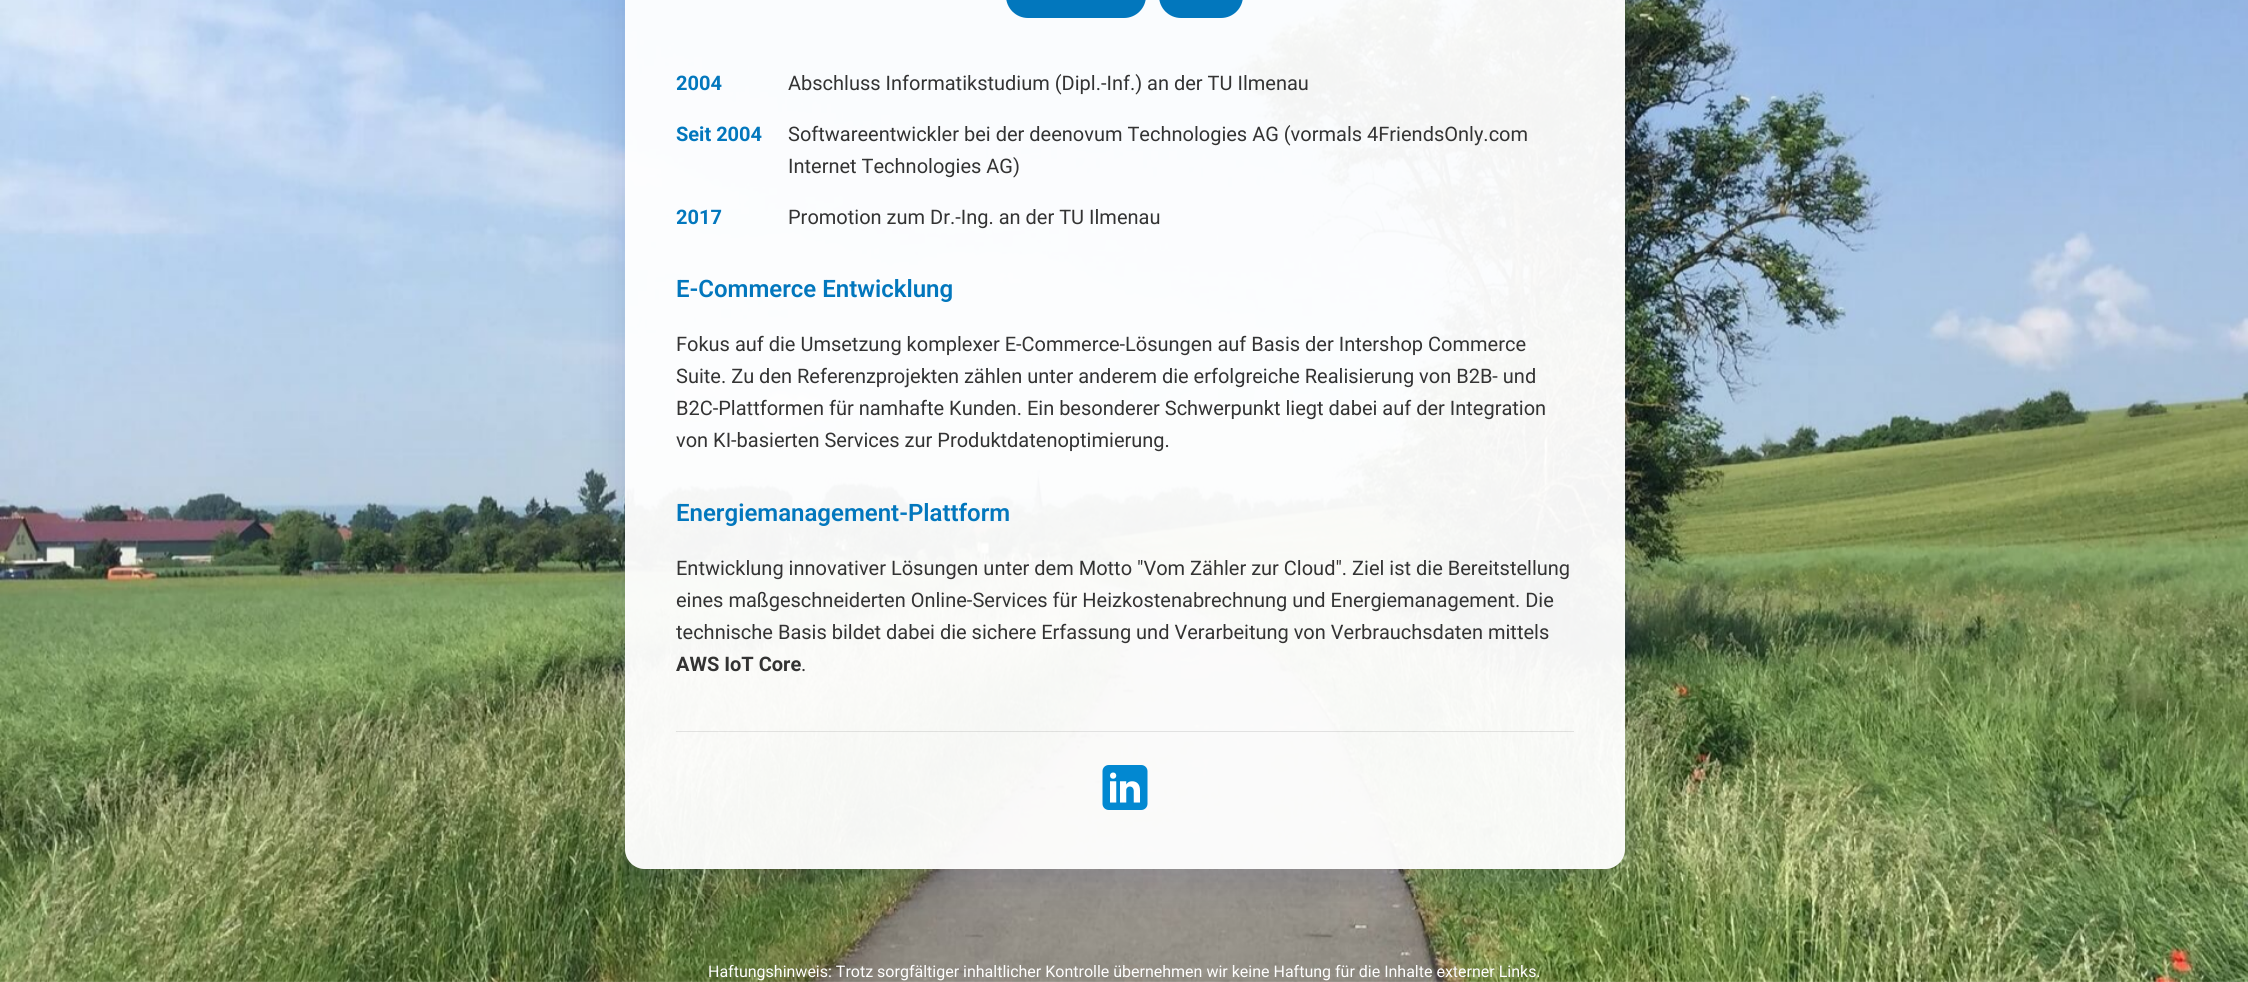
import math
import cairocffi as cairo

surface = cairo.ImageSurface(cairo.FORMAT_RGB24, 2248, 982)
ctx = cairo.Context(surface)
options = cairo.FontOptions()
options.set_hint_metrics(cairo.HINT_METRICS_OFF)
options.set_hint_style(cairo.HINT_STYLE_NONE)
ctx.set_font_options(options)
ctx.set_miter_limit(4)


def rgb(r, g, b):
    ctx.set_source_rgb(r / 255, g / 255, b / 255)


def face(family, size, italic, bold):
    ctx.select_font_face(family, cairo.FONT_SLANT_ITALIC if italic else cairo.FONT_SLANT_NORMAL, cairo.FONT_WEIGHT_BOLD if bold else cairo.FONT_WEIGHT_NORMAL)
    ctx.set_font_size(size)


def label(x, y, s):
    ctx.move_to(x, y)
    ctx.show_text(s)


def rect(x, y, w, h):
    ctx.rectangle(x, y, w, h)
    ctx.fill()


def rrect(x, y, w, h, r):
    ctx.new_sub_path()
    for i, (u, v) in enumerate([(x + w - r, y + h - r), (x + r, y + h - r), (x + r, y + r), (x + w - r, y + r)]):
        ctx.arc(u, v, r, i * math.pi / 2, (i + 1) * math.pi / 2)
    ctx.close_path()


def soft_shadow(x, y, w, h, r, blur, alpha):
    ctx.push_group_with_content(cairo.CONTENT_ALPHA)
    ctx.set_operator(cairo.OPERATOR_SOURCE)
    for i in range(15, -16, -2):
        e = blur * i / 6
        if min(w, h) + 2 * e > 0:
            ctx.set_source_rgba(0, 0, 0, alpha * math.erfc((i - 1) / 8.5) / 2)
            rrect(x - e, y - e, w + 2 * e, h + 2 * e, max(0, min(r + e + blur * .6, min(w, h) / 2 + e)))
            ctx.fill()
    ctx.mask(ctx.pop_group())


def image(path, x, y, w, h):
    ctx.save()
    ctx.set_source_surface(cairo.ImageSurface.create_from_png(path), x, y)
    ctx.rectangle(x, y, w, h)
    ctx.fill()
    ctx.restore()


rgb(255, 255, 255)
ctx.paint()
image('image0.png', 0, 0, 2248, 982)
ctx.save()
ctx.set_fill_rule(cairo.FILL_RULE_EVEN_ODD)
ctx.new_path()
ctx.move_to(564, 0)
ctx.line_to(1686, 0)
ctx.line_to(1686, 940)
ctx.line_to(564, 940)
ctx.close_path()
ctx.move_to(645, -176)
ctx.line_to(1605, -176)
ctx.curve_to(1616, -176, 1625, -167, 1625, -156)
ctx.line_to(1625, 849)
ctx.curve_to(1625, 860, 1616, 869, 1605, 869)
ctx.line_to(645, 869)
ctx.curve_to(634, 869, 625, 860, 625, 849)
ctx.line_to(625, -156)
ctx.curve_to(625, -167, 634, -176, 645, -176)
ctx.close_path()
ctx.clip()
rgb(31, 38, 135)
soft_shadow(625, -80, 1000, 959, 20, 20, 0.15)
ctx.restore()
ctx.set_source_rgba(1, 1, 1, 0.95)
rrect(625, -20, 1000, 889, 20)
ctx.fill()
rrect(625.5, -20.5, 999, 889, 19.5)
ctx.set_source_rgba(1, 1, 1, 0.3)
ctx.set_line_width(1)
ctx.stroke()
rgb(2, 119, 189)
rrect(1006, -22, 140, 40, 22)
ctx.fill()
rrect(1159, -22, 84, 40, 22)
ctx.fill()
face('Roboto', 20, 0, 1)
label(676, 90, '2004')
face('Roboto', 20, 0, 0)
rgb(51, 51, 51)
label(788, 90, 'Abschluss Informatikstudium (Dipl.-Inf.) an der TU Ilmenau')
face('Roboto', 20, 0, 1)
rgb(2, 119, 189)
label(676, 141, 'Seit 2004')
face('Roboto', 20, 0, 0)
rgb(51, 51, 51)
label(788, 141, 'Softwareentwickler bei der deenovum Technologies AG (vormals 4FriendsOnly.com')
label(788, 173, 'Internet Technologies AG)')
face('Roboto', 20, 0, 1)
rgb(2, 119, 189)
label(676, 224, '2017')
face('Roboto', 20, 0, 0)
rgb(51, 51, 51)
label(788, 224, 'Promotion zum Dr.-Ing. an der TU Ilmenau')
face('Roboto SemiBold', 24, 0, 0)
rgb(2, 119, 189)
label(676, 297, 'E-Commerce Entwicklung')
face('Roboto', 20, 0, 0)
rgb(51, 51, 51)
label(676, 351, 'Fokus auf die Umsetzung komplexer E-Commerce-Lösungen auf Basis der Intershop Commerce')
label(676, 383, 'Suite. Zu den Referenzprojekten zählen unter anderem die erfolgreiche Realisierung von B2B- und')
label(676, 415, 'B2C-Plattformen für namhafte Kunden. Ein besonderer Schwerpunkt liegt dabei auf der Integration')
label(676, 447, 'von KI-basierten Services zur Produktdatenoptimierung.')
face('Roboto SemiBold', 24, 0, 0)
rgb(2, 119, 189)
label(676, 521, 'Energiemanagement-Plattform')
face('Roboto', 20, 0, 0)
rgb(51, 51, 51)
label(676, 575, 'Entwicklung innovativer Lösungen unter dem Motto "Vom Zähler zur Cloud". Ziel ist die Bereitstellung')
label(676, 607, 'eines maßgeschneiderten Online-Services für Heizkostenabrechnung und Energiemanagement. Die')
label(676, 639, 'technische Basis bildet dabei die sichere Erfassung und Verarbeitung von Verbrauchsdaten mittels')
face('Roboto', 20, 0, 1)
label(676, 671, 'AWS IoT Core')
face('Roboto', 20, 0, 0)
label(801, 671, '.')
ctx.set_source_rgba(0, 0, 0, 0.1)
rect(676, 731, 898, 1)
image('image1.png', 1102, 765, 46, 45)
face('Roboto', 16, 0, 0)
rgb(255, 255, 255)
label(708, 977, 'Haftungshinweis: Trotz sorgfältiger inhaltlicher Kontrolle übernehmen wir keine Haftung für die Inhalte externer Links.')
surface.write_to_png('render.png')
